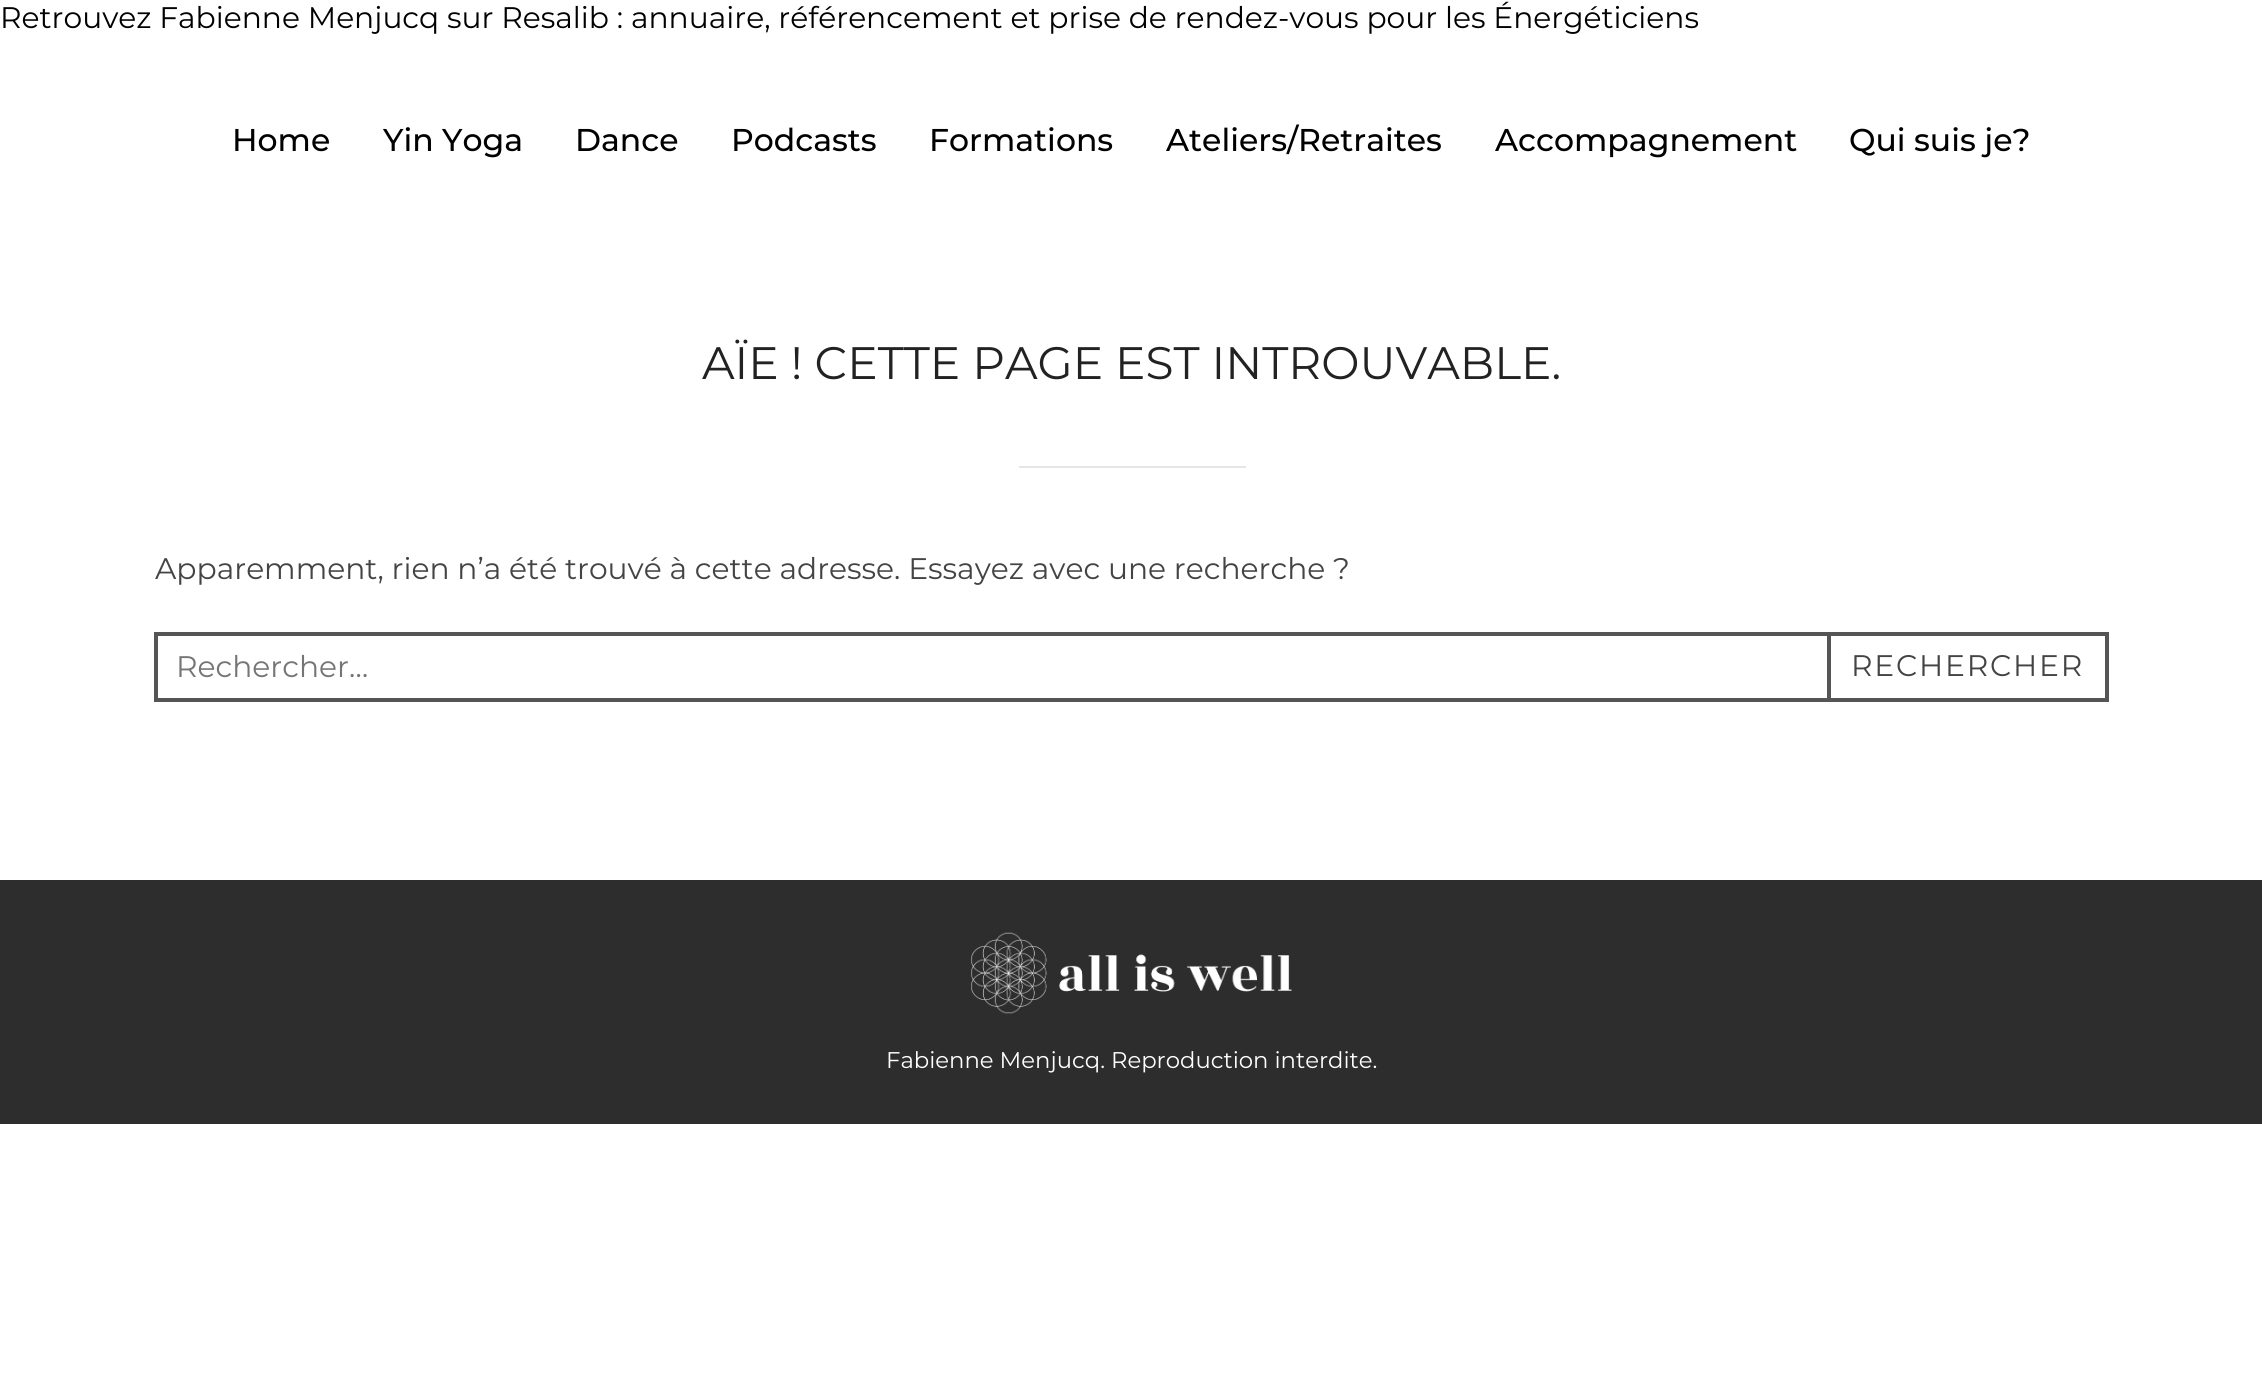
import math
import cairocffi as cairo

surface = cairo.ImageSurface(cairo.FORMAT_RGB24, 2262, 1375)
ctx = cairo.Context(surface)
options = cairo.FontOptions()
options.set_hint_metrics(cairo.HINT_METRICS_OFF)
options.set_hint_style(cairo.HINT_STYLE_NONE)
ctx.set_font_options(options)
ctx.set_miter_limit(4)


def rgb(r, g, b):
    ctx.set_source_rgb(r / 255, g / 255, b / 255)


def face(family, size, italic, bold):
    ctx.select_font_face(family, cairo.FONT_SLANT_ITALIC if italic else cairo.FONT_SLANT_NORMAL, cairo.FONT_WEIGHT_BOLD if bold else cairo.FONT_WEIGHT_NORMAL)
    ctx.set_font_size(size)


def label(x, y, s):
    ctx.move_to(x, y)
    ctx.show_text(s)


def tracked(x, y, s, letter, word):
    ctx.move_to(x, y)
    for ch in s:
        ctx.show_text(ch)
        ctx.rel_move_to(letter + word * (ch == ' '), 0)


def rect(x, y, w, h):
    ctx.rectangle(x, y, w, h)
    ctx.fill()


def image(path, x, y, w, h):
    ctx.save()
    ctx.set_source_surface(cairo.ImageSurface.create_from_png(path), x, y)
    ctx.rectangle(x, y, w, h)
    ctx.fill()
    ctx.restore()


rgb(255, 255, 255)
ctx.paint()
face('Montserrat', 29.75, 0, 0)
rgb(0, 0, 0)
label(0, 28, 'Retrouvez Fabienne Menjucq sur Resalib : annuaire, référencement et prise de rendez-vous pour les Énergéticiens')
face('Montserrat Medium', 31.5, 0, 0)
label(232, 151, 'Home')
label(383, 151, 'Yin Yoga')
label(575, 151, 'Dance')
label(731, 151, 'Podcasts')
label(929, 151, 'Formations')
label(1166, 151, 'Ateliers/Retraites')
label(1495, 151, 'Accompagnement')
label(1849, 151, 'Qui suis je?')
face('Montserrat', 45.5, 0, 0)
rgb(34, 34, 34)
label(702, 379, 'AÏE ! CETTE PAGE EST INTROUVABLE.')
rgb(230, 230, 230)
rect(1019, 466, 227, 2)
face('Montserrat', 29.75, 0, 0)
rgb(68, 68, 68)
label(155, 579, 'Apparemment, rien n’a été trouvé à cette adresse. Essayez avec une recherche ?')
ctx.rectangle(156, 634, 1951, 66)
rgb(86, 85, 85)
ctx.set_line_width(4)
ctx.stroke()
rgb(117, 117, 117)
label(176, 677, 'Rechercher…')
ctx.rectangle(1829, 634, 278, 66)
rgb(86, 85, 85)
ctx.stroke()
rgb(68, 68, 68)
tracked(1851, 676, 'RECHERCHER', 1.75, 0)
rgb(45, 45, 45)
rect(0, 880, 2262, 244)
image('image0.png', 971, 932, 321, 82)
face('Montserrat', 22.75, 0, 0)
rgb(255, 255, 255)
label(886, 1068, 'Fabienne Menjucq. Reproduction interdite.')
surface.write_to_png('render.png')
